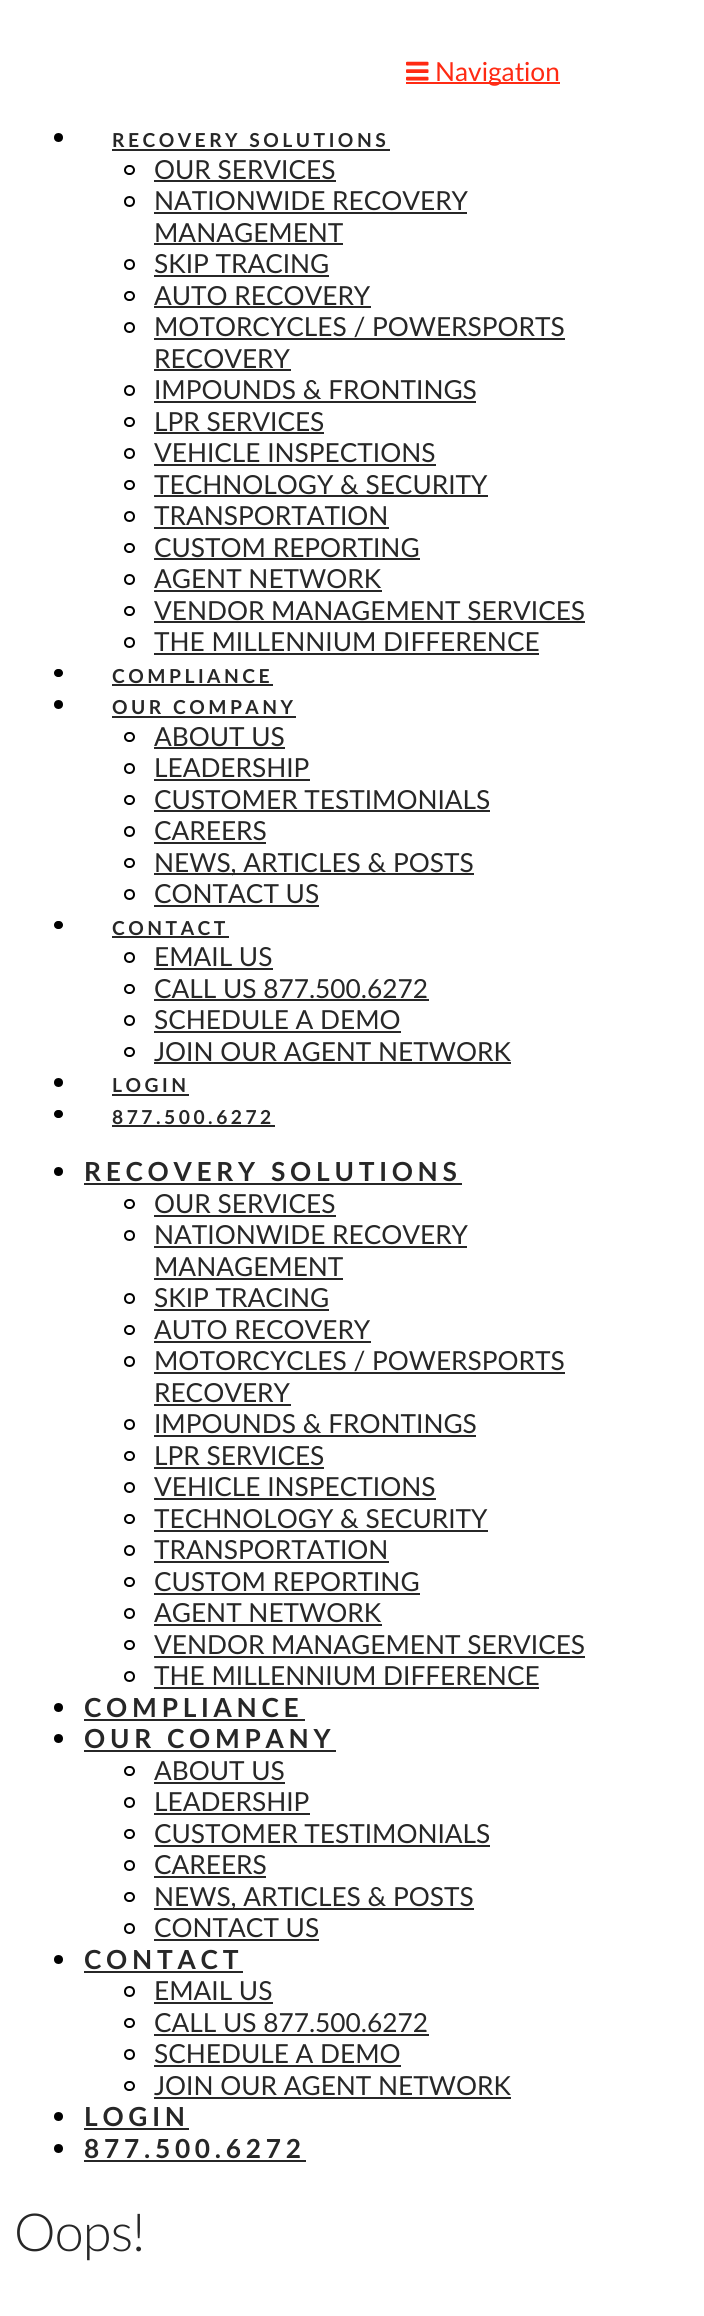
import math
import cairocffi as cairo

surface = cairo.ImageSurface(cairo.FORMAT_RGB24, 704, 2316)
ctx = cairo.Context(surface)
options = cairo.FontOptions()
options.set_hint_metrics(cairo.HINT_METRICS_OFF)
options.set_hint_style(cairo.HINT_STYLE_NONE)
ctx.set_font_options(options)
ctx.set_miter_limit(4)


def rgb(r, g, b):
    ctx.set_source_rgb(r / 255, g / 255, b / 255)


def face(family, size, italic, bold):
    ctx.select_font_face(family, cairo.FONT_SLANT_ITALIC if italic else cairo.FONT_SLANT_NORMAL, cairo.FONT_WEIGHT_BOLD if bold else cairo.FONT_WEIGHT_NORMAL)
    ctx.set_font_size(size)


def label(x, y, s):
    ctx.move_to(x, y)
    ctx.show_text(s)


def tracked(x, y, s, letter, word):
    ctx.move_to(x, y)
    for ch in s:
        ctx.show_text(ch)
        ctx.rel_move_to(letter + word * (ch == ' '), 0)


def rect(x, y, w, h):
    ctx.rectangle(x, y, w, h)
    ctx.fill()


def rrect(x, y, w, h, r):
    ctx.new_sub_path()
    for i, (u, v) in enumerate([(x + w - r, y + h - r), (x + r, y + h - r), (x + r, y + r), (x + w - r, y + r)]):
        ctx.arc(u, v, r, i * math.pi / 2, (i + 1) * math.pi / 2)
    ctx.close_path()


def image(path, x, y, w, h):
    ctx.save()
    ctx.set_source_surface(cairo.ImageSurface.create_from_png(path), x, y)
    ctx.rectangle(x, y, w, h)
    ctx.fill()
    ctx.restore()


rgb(255, 255, 255)
ctx.paint()
image('image0.png', 406, 61, 23, 20)
rgb(255, 42, 19)
rect(406, 82, 154, 2)
face('Lato', 26.25, 0, 0)
label(435, 81, 'Navigation')
rgb(0, 0, 0)
ctx.new_path()
ctx.arc(58.5, 137.5, 4.5, 0, 2 * math.pi)
ctx.fill()
face('Lato', 19.25, 0, 1)
rgb(39, 39, 39)
tracked(112, 147, 'RECOVERY SOLUTIONS', 3.5, 0)
rect(112, 149, 278, 2)
rrect(125, 166, 9, 8, 4)
rgb(0, 0, 0)
ctx.stroke()
face('Lato', 26.25, 0, 0)
rgb(39, 39, 39)
label(154, 179, 'OUR SERVICES')
rect(154, 180, 182, 2)
ctx.new_path()
ctx.arc(129.5, 201.5, 4.5, 0, 2 * math.pi)
rgb(0, 0, 0)
ctx.stroke()
rgb(39, 39, 39)
label(154, 210, 'NATIONWIDE RECOVERY')
rect(154, 212, 313, 2)
label(154, 242, 'MANAGEMENT')
rect(154, 243, 189, 2)
ctx.new_path()
ctx.arc(129.5, 264.5, 4.5, 0, 2 * math.pi)
rgb(0, 0, 0)
ctx.stroke()
rgb(39, 39, 39)
label(154, 273, 'SKIP TRACING')
rect(154, 275, 175, 2)
rrect(125, 292, 9, 8, 4)
rgb(0, 0, 0)
ctx.stroke()
rgb(39, 39, 39)
label(154, 305, 'AUTO RECOVERY')
rect(154, 306, 217, 2)
ctx.new_path()
ctx.arc(129.5, 327.5, 4.5, 0, 2 * math.pi)
rgb(0, 0, 0)
ctx.stroke()
rgb(39, 39, 39)
label(154, 336, 'MOTORCYCLES / POWERSPORTS')
rect(154, 338, 411, 2)
label(154, 368, 'RECOVERY')
rect(154, 369, 137, 2)
ctx.new_path()
ctx.arc(129.5, 390.5, 4.5, 0, 2 * math.pi)
rgb(0, 0, 0)
ctx.stroke()
rgb(39, 39, 39)
label(154, 399, 'IMPOUNDS & FRONTINGS')
rect(154, 401, 322, 2)
rrect(125, 418, 9, 8, 4)
rgb(0, 0, 0)
ctx.stroke()
rgb(39, 39, 39)
label(154, 431, 'LPR SERVICES')
rect(154, 432, 170, 2)
ctx.new_path()
ctx.arc(129.5, 453.5, 4.5, 0, 2 * math.pi)
rgb(0, 0, 0)
ctx.stroke()
rgb(39, 39, 39)
label(154, 462, 'VEHICLE INSPECTIONS')
rect(154, 464, 282, 2)
rrect(125, 481, 9, 8, 4)
rgb(0, 0, 0)
ctx.stroke()
rgb(39, 39, 39)
label(154, 494, 'TECHNOLOGY & SECURITY')
rect(154, 495, 334, 2)
ctx.new_path()
ctx.arc(129.5, 516.5, 4.5, 0, 2 * math.pi)
rgb(0, 0, 0)
ctx.stroke()
rgb(39, 39, 39)
label(154, 525, 'TRANSPORTATION')
rect(154, 527, 235, 2)
rrect(125, 544, 9, 8, 4)
rgb(0, 0, 0)
ctx.stroke()
rgb(39, 39, 39)
label(154, 557, 'CUSTOM REPORTING')
rect(154, 558, 266, 2)
ctx.new_path()
ctx.arc(129.5, 579.5, 4.5, 0, 2 * math.pi)
rgb(0, 0, 0)
ctx.stroke()
rgb(39, 39, 39)
label(154, 588, 'AGENT NETWORK')
rect(154, 590, 228, 2)
rrect(125, 607, 9, 8, 4)
rgb(0, 0, 0)
ctx.stroke()
rgb(39, 39, 39)
label(154, 620, 'VENDOR MANAGEMENT SERVICES')
rect(154, 621, 431, 2)
ctx.new_path()
ctx.arc(129.5, 642.5, 4.5, 0, 2 * math.pi)
rgb(0, 0, 0)
ctx.stroke()
rgb(39, 39, 39)
label(154, 651, 'THE MILLENNIUM DIFFERENCE')
rect(154, 653, 385, 2)
rgb(0, 0, 0)
rrect(54, 669, 9, 8, 4)
ctx.fill()
face('Lato', 19.25, 0, 1)
rgb(39, 39, 39)
tracked(112, 683, 'COMPLIANCE', 3.5, 0)
rect(112, 684, 161, 2)
rgb(0, 0, 0)
ctx.new_path()
ctx.arc(58.5, 704.5, 4.5, 0, 2 * math.pi)
ctx.fill()
rgb(39, 39, 39)
tracked(112, 714, 'OUR COMPANY', 3.5, 0)
rect(112, 716, 184, 2)
rrect(125, 733, 9, 8, 4)
rgb(0, 0, 0)
ctx.stroke()
face('Lato', 26.25, 0, 0)
rgb(39, 39, 39)
label(154, 746, 'ABOUT US')
rect(154, 747, 131, 2)
ctx.new_path()
ctx.arc(129.5, 768.5, 4.5, 0, 2 * math.pi)
rgb(0, 0, 0)
ctx.stroke()
rgb(39, 39, 39)
label(154, 777, 'LEADERSHIP')
rect(154, 779, 156, 2)
rrect(125, 796, 9, 8, 4)
rgb(0, 0, 0)
ctx.stroke()
rgb(39, 39, 39)
label(154, 809, 'CUSTOMER TESTIMONIALS')
rect(154, 810, 336, 2)
ctx.new_path()
ctx.arc(129.5, 831.5, 4.5, 0, 2 * math.pi)
rgb(0, 0, 0)
ctx.stroke()
rgb(39, 39, 39)
label(154, 840, 'CAREERS')
rect(154, 842, 112, 2)
rrect(125, 859, 9, 8, 4)
rgb(0, 0, 0)
ctx.stroke()
rgb(39, 39, 39)
rect(154, 873, 320, 2)
label(154, 872, 'NEWS, ARTICLES & POSTS')
ctx.new_path()
ctx.arc(129.5, 894.5, 4.5, 0, 2 * math.pi)
rgb(0, 0, 0)
ctx.stroke()
rgb(39, 39, 39)
label(154, 903, 'CONTACT US')
rect(154, 905, 165, 2)
rgb(0, 0, 0)
rrect(54, 921, 9, 8, 4)
ctx.fill()
face('Lato', 19.25, 0, 1)
rgb(39, 39, 39)
tracked(112, 935, 'CONTACT', 3.5, 0)
rect(112, 936, 117, 2)
ctx.new_path()
ctx.arc(129.5, 957.5, 4.5, 0, 2 * math.pi)
rgb(0, 0, 0)
ctx.stroke()
face('Lato', 26.25, 0, 0)
rgb(39, 39, 39)
label(154, 966, 'EMAIL US')
rect(154, 968, 119, 2)
rrect(125, 985, 9, 8, 4)
rgb(0, 0, 0)
ctx.stroke()
rgb(39, 39, 39)
label(154, 998, 'CALL US 877.500.6272')
rect(154, 999, 275, 2)
ctx.new_path()
ctx.arc(129.5, 1020.5, 4.5, 0, 2 * math.pi)
rgb(0, 0, 0)
ctx.stroke()
rgb(39, 39, 39)
label(154, 1029, 'SCHEDULE A DEMO')
rect(154, 1031, 247, 2)
rrect(125, 1048, 9, 8, 4)
rgb(0, 0, 0)
ctx.stroke()
rgb(39, 39, 39)
label(154, 1061, 'JOIN OUR AGENT NETWORK')
rect(154, 1062, 357, 2)
rgb(0, 0, 0)
ctx.new_path()
ctx.arc(58.5, 1082.5, 4.5, 0, 2 * math.pi)
ctx.fill()
face('Lato', 19.25, 0, 1)
rgb(39, 39, 39)
tracked(112, 1092, 'LOGIN', 3.5, 0)
rect(112, 1094, 77, 2)
rgb(0, 0, 0)
rrect(54, 1110, 9, 8, 4)
ctx.fill()
rgb(39, 39, 39)
tracked(112, 1124, '877.500.6272', 3.5, 0)
rect(112, 1125, 163, 2)
rgb(0, 0, 0)
ctx.new_path()
ctx.arc(58.5, 1171.5, 4.5, 0, 2 * math.pi)
ctx.fill()
face('Lato', 26.25, 0, 1)
rgb(39, 39, 39)
tracked(84, 1181, 'RECOVERY SOLUTIONS', 4.75, 0)
rect(84, 1183, 378, 2)
rrect(125, 1200, 9, 8, 4)
rgb(0, 0, 0)
ctx.stroke()
face('Lato', 26.25, 0, 0)
rgb(39, 39, 39)
label(154, 1213, 'OUR SERVICES')
rect(154, 1215, 182, 2)
ctx.new_path()
ctx.arc(129.5, 1235.5, 4.5, 0, 2 * math.pi)
rgb(0, 0, 0)
ctx.stroke()
rgb(39, 39, 39)
label(154, 1244, 'NATIONWIDE RECOVERY')
rect(154, 1246, 313, 2)
label(154, 1276, 'MANAGEMENT')
rect(154, 1278, 189, 2)
ctx.new_path()
ctx.arc(129.5, 1298.5, 4.5, 0, 2 * math.pi)
rgb(0, 0, 0)
ctx.stroke()
rgb(39, 39, 39)
label(154, 1307, 'SKIP TRACING')
rect(154, 1309, 175, 2)
rrect(125, 1326, 9, 8, 4)
rgb(0, 0, 0)
ctx.stroke()
rgb(39, 39, 39)
label(154, 1339, 'AUTO RECOVERY')
rect(154, 1341, 217, 2)
ctx.new_path()
ctx.arc(129.5, 1361.5, 4.5, 0, 2 * math.pi)
rgb(0, 0, 0)
ctx.stroke()
rgb(39, 39, 39)
label(154, 1370, 'MOTORCYCLES / POWERSPORTS')
rect(154, 1372, 411, 2)
label(154, 1402, 'RECOVERY')
rect(154, 1404, 137, 2)
ctx.new_path()
ctx.arc(129.5, 1424.5, 4.5, 0, 2 * math.pi)
rgb(0, 0, 0)
ctx.stroke()
rgb(39, 39, 39)
label(154, 1433, 'IMPOUNDS & FRONTINGS')
rect(154, 1435, 322, 2)
rrect(125, 1452, 9, 8, 4)
rgb(0, 0, 0)
ctx.stroke()
rgb(39, 39, 39)
label(154, 1465, 'LPR SERVICES')
rect(154, 1467, 170, 2)
ctx.new_path()
ctx.arc(129.5, 1487.5, 4.5, 0, 2 * math.pi)
rgb(0, 0, 0)
ctx.stroke()
rgb(39, 39, 39)
label(154, 1496, 'VEHICLE INSPECTIONS')
rect(154, 1498, 282, 2)
rrect(125, 1515, 9, 8, 4)
rgb(0, 0, 0)
ctx.stroke()
rgb(39, 39, 39)
label(154, 1528, 'TECHNOLOGY & SECURITY')
rect(154, 1530, 334, 2)
ctx.new_path()
ctx.arc(129.5, 1550.5, 4.5, 0, 2 * math.pi)
rgb(0, 0, 0)
ctx.stroke()
rgb(39, 39, 39)
label(154, 1559, 'TRANSPORTATION')
rect(154, 1561, 235, 2)
rrect(125, 1578, 9, 8, 4)
rgb(0, 0, 0)
ctx.stroke()
rgb(39, 39, 39)
label(154, 1591, 'CUSTOM REPORTING')
rect(154, 1593, 266, 2)
ctx.new_path()
ctx.arc(129.5, 1613.5, 4.5, 0, 2 * math.pi)
rgb(0, 0, 0)
ctx.stroke()
rgb(39, 39, 39)
label(154, 1622, 'AGENT NETWORK')
rect(154, 1624, 228, 2)
rrect(125, 1641, 9, 8, 4)
rgb(0, 0, 0)
ctx.stroke()
rgb(39, 39, 39)
label(154, 1654, 'VENDOR MANAGEMENT SERVICES')
rect(154, 1656, 431, 2)
ctx.new_path()
ctx.arc(129.5, 1676.5, 4.5, 0, 2 * math.pi)
rgb(0, 0, 0)
ctx.stroke()
rgb(39, 39, 39)
label(154, 1685, 'THE MILLENNIUM DIFFERENCE')
rect(154, 1687, 385, 2)
rgb(0, 0, 0)
ctx.new_path()
ctx.arc(58.5, 1707.5, 4.5, 0, 2 * math.pi)
ctx.fill()
face('Lato', 26.25, 0, 1)
rgb(39, 39, 39)
tracked(84, 1717, 'COMPLIANCE', 4.75, 0)
rect(84, 1719, 221, 2)
rgb(0, 0, 0)
ctx.new_path()
ctx.arc(58.5, 1738.5, 4.5, 0, 2 * math.pi)
ctx.fill()
rgb(39, 39, 39)
tracked(84, 1748, 'OUR COMPANY', 4.75, 0)
rect(84, 1750, 252, 2)
rrect(125, 1767, 9, 8, 4)
rgb(0, 0, 0)
ctx.stroke()
face('Lato', 26.25, 0, 0)
rgb(39, 39, 39)
label(154, 1780, 'ABOUT US')
rect(154, 1782, 131, 2)
ctx.new_path()
ctx.arc(129.5, 1802.5, 4.5, 0, 2 * math.pi)
rgb(0, 0, 0)
ctx.stroke()
rgb(39, 39, 39)
label(154, 1811, 'LEADERSHIP')
rect(154, 1813, 156, 2)
rrect(125, 1830, 9, 8, 4)
rgb(0, 0, 0)
ctx.stroke()
rgb(39, 39, 39)
label(154, 1843, 'CUSTOMER TESTIMONIALS')
rect(154, 1845, 336, 2)
ctx.new_path()
ctx.arc(129.5, 1865.5, 4.5, 0, 2 * math.pi)
rgb(0, 0, 0)
ctx.stroke()
rgb(39, 39, 39)
label(154, 1874, 'CAREERS')
rect(154, 1876, 112, 2)
rrect(125, 1893, 9, 8, 4)
rgb(0, 0, 0)
ctx.stroke()
rgb(39, 39, 39)
rect(154, 1908, 320, 2)
label(154, 1906, 'NEWS, ARTICLES & POSTS')
ctx.new_path()
ctx.arc(129.5, 1928.5, 4.5, 0, 2 * math.pi)
rgb(0, 0, 0)
ctx.stroke()
rgb(39, 39, 39)
label(154, 1937, 'CONTACT US')
rect(154, 1939, 165, 2)
rgb(0, 0, 0)
ctx.new_path()
ctx.arc(58.5, 1959.5, 4.5, 0, 2 * math.pi)
ctx.fill()
face('Lato', 26.25, 0, 1)
rgb(39, 39, 39)
tracked(84, 1969, 'CONTACT', 4.75, 0)
rect(84, 1971, 159, 2)
ctx.new_path()
ctx.arc(129.5, 1991.5, 4.5, 0, 2 * math.pi)
rgb(0, 0, 0)
ctx.stroke()
face('Lato', 26.25, 0, 0)
rgb(39, 39, 39)
label(154, 2000, 'EMAIL US')
rect(154, 2002, 119, 2)
rrect(125, 2019, 9, 8, 4)
rgb(0, 0, 0)
ctx.stroke()
rgb(39, 39, 39)
label(154, 2032, 'CALL US 877.500.6272')
rect(154, 2034, 275, 2)
ctx.new_path()
ctx.arc(129.5, 2054.5, 4.5, 0, 2 * math.pi)
rgb(0, 0, 0)
ctx.stroke()
rgb(39, 39, 39)
label(154, 2063, 'SCHEDULE A DEMO')
rect(154, 2065, 247, 2)
rrect(125, 2082, 9, 8, 4)
rgb(0, 0, 0)
ctx.stroke()
rgb(39, 39, 39)
label(154, 2095, 'JOIN OUR AGENT NETWORK')
rect(154, 2097, 357, 2)
rgb(0, 0, 0)
ctx.new_path()
ctx.arc(58.5, 2116.5, 4.5, 0, 2 * math.pi)
ctx.fill()
face('Lato', 26.25, 0, 1)
rgb(39, 39, 39)
tracked(84, 2126, 'LOGIN', 4.75, 0)
rect(84, 2128, 105, 2)
rgb(0, 0, 0)
ctx.new_path()
ctx.arc(58.5, 2148.5, 4.5, 0, 2 * math.pi)
ctx.fill()
rgb(39, 39, 39)
tracked(84, 2158, '877.500.6272', 4.75, 0)
rect(84, 2160, 222, 2)
face('Lato Light', 52.5, 0, 0)
tracked(14, 2251, 'Oops!', -1, 0)
surface.write_to_png('render.png')
